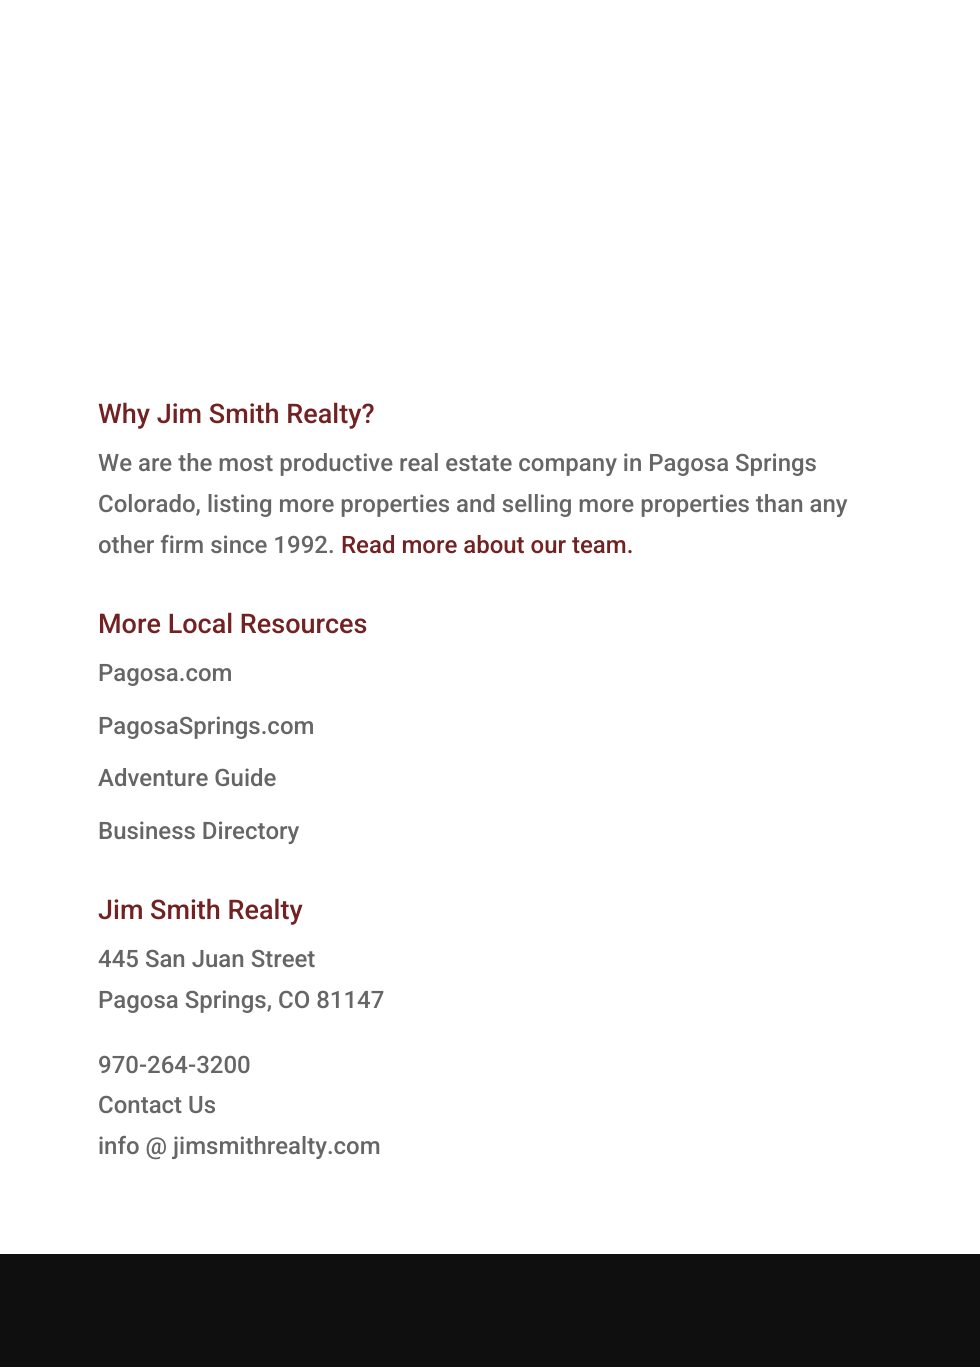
import math
import cairocffi as cairo

surface = cairo.ImageSurface(cairo.FORMAT_RGB24, 980, 1367)
ctx = cairo.Context(surface)
options = cairo.FontOptions()
options.set_hint_metrics(cairo.HINT_METRICS_OFF)
options.set_hint_style(cairo.HINT_STYLE_NONE)
ctx.set_font_options(options)
ctx.set_miter_limit(4)


def rgb(r, g, b):
    ctx.set_source_rgb(r / 255, g / 255, b / 255)


def face(family, size, italic, bold):
    ctx.select_font_face(family, cairo.FONT_SLANT_ITALIC if italic else cairo.FONT_SLANT_NORMAL, cairo.FONT_WEIGHT_BOLD if bold else cairo.FONT_WEIGHT_NORMAL)
    ctx.set_font_size(size)


def label(x, y, s):
    ctx.move_to(x, y)
    ctx.show_text(s)


def rect(x, y, w, h):
    ctx.rectangle(x, y, w, h)
    ctx.fill()


rgb(255, 255, 255)
ctx.paint()
face('Roboto Medium', 27, 0, 0)
rgb(114, 34, 35)
label(98, 423, 'Why Jim Smith Realty?')
face('Roboto Medium', 24, 0, 0)
rgb(102, 102, 102)
label(98, 471, 'We are the most productive real estate company in Pagosa Springs')
label(98, 512, 'Colorado, listing more properties and selling more properties than any')
label(98, 553, 'other firm since 1992.')
rgb(114, 34, 35)
label(341, 553, 'Read more about our team.')
face('Roboto Medium', 27, 0, 0)
label(98, 633, 'More Local Resources')
face('Roboto Medium', 24, 0, 0)
rgb(102, 102, 102)
label(98, 681, 'Pagosa.com')
label(98, 734, 'PagosaSprings.com')
label(98, 786, 'Adventure Guide')
label(98, 839, 'Business Directory')
face('Roboto Medium', 27, 0, 0)
rgb(114, 34, 35)
label(98, 919, 'Jim Smith Realty')
face('Roboto Medium', 24, 0, 0)
rgb(102, 102, 102)
label(98, 967, '445 San Juan Street')
label(98, 1008, 'Pagosa Springs, CO 81147')
label(98, 1073, '970-264-3200')
label(98, 1113, 'Contact Us')
label(98, 1154, 'info @ jimsmithrealty.com')
rgb(15, 15, 15)
rect(0, 1254, 980, 113)
surface.write_to_png('render.png')
